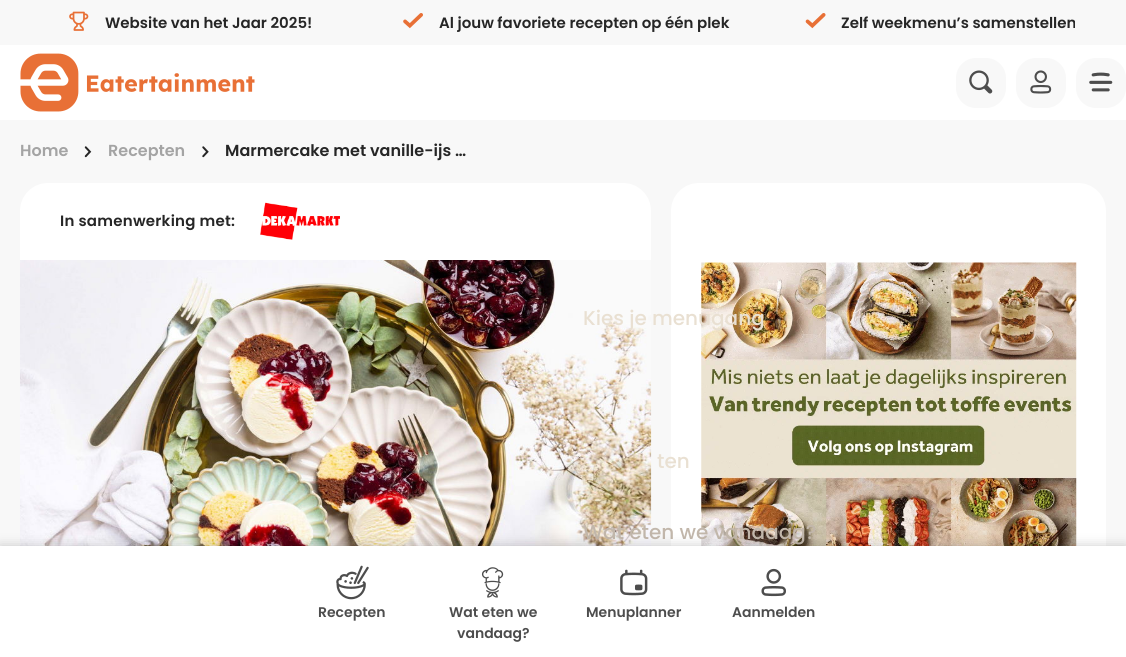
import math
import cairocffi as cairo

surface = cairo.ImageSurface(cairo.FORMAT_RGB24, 1126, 657)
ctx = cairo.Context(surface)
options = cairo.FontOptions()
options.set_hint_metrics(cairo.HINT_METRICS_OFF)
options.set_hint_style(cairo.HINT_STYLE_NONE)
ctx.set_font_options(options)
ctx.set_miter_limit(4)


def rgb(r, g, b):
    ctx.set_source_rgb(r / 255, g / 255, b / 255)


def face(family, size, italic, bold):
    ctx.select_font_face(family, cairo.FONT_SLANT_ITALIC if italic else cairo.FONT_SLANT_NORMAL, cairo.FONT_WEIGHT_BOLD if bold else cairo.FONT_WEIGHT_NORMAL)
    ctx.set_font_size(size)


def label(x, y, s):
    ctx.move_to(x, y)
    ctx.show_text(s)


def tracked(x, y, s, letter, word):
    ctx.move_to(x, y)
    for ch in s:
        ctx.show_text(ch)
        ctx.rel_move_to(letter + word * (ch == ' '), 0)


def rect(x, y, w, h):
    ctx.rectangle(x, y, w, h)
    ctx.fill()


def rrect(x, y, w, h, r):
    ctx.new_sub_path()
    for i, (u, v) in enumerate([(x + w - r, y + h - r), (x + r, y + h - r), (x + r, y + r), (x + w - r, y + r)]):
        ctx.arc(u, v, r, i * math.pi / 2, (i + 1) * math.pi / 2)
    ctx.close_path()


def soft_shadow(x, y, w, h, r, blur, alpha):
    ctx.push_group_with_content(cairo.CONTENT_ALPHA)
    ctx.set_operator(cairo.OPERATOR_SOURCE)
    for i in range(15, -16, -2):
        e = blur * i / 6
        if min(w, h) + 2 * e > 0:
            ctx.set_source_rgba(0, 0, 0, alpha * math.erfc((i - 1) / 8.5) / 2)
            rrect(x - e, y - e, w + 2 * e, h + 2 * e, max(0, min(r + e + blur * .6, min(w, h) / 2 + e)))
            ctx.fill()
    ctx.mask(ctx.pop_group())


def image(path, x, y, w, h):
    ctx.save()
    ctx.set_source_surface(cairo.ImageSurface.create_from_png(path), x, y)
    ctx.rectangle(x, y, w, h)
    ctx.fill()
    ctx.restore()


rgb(248, 248, 248)
ctx.paint()
image('image0.png', 69, 11, 20, 20)
face('Poppins SemiBold', 15, 0, 0)
rgb(38, 38, 38)
label(105, 28, 'Website van het Jaar 2025!')
image('image1.png', 403, 13, 20, 16)
label(439, 28, 'Al jouw favoriete recepten op één plek')
image('image2.png', 805, 13, 21, 16)
label(841, 28, 'Zelf weekmenu’s samenstellen')
rgb(255, 255, 255)
rect(0, 45, 1126, 75)
image('image3.png', 20, 53, 235, 59)
rgb(248, 248, 248)
rrect(956, 58, 50, 50, 20)
ctx.fill()
image('image4.png', 969, 70, 24, 24)
rrect(1016, 58, 50, 50, 20)
ctx.fill()
image('image5.png', 1030, 70, 22, 24)
rrect(1076, 58, 50, 50, 20)
ctx.fill()
image('image6.png', 1089, 72, 24, 20)
rgb(255, 255, 255)
rrect(20, 183, 631, 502, 28)
ctx.fill()
image('image14.png', 20, 260, 632, 286)
rrect(671, 183, 435, 470, 28)
ctx.fill()
image('image15.png', 701, 262, 376, 284)
face('Poppins Medium', 20, 0, 0)
rgb(233, 224, 210)
label(583, 325, 'Kies je menugang')
label(657, 468, 'ten')
rgb(194, 183, 171)
label(583, 539, 'Wat eten we vandaag?')
rgb(0, 0, 0)
soft_shadow(0, 546, 1126, 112, 0, 6, 0.2)
rgb(255, 255, 255)
rect(0, 546, 1126, 111)
image('image7.png', 336, 565, 33, 35)
face('Poppins SemiBold', 14, 0, 0)
rgb(77, 77, 77)
label(318, 617, 'Recepten')
image('image8.png', 481, 567, 23, 31)
label(449, 617, 'Wat eten we')
label(457, 638, 'vandaag?')
image('image9.png', 620, 569, 28, 27)
label(586, 617, 'Menuplanner')
image('image10.png', 761, 568, 25, 29)
label(732, 617, 'Aanmelden')
face('Poppins SemiBold', 16, 0, 0)
rgb(164, 164, 164)
label(20, 156, 'Home')
image('image11.png', 84, 146, 8, 12)
label(108, 156, 'Recepten')
image('image12.png', 202, 146, 7, 12)
rgb(38, 38, 38)
label(225, 156, 'Marmercake met vanille-ijs …')
face('Poppins SemiBold', 15, 0, 0)
tracked(60, 226, 'In samenwerking met:', 0.25, 0)
image('image13.png', 260, 202, 80, 38)
surface.write_to_png('render.png')
